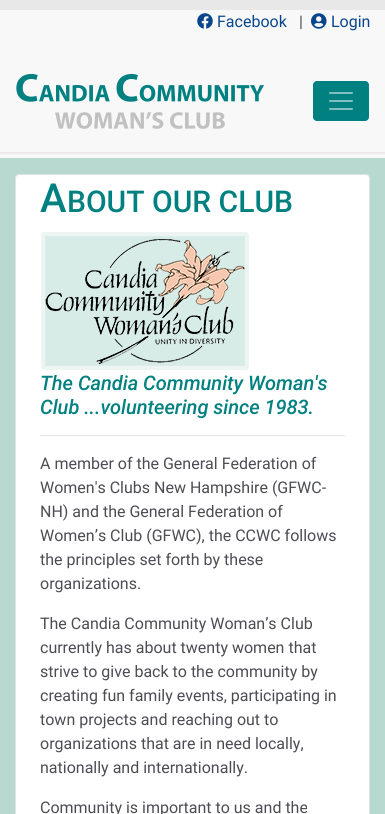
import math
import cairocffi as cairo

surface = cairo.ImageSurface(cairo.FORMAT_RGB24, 385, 814)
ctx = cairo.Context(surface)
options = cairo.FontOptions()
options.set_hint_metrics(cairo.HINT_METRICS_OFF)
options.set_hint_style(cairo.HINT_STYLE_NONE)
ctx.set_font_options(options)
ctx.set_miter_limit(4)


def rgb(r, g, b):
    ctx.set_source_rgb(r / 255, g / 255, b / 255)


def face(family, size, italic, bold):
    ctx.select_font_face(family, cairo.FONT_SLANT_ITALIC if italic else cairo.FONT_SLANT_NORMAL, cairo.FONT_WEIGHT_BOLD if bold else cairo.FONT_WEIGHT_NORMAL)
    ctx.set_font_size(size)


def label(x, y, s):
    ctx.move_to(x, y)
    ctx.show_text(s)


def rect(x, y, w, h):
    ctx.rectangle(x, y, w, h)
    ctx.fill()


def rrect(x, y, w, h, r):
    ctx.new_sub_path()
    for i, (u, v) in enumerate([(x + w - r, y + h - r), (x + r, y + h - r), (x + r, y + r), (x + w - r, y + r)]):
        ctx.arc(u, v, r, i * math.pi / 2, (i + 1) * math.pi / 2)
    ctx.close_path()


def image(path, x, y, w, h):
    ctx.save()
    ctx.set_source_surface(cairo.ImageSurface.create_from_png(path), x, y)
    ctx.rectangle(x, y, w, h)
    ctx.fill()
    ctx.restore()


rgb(184, 217, 208)
ctx.paint()
rgb(248, 248, 248)
rect(0, 10, 385, 142)
rgb(232, 232, 232)
rect(0, 0, 385, 10)
rect(0, 152, 385, 2)
image('image0.png', 197, 13, 16, 16)
face('Roboto', 16, 0, 0)
rgb(7, 70, 140)
label(217, 27, 'Facebook')
rgb(75, 77, 82)
label(299, 27, '|')
image('image1.png', 311, 13, 16, 16)
rgb(7, 70, 140)
label(331, 27, 'Login')
image('image2.png', 16, 73, 248, 56)
rgb(0, 128, 128)
rrect(313, 81, 56, 40, 4)
ctx.fill()
image('image3.png', 329, 92, 24, 18)
rgb(248, 248, 248)
rect(0, 154, 385, 4)
rgb(255, 255, 255)
rrect(15, 174, 355, 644, 4)
ctx.fill()
rrect(15.5, 174.5, 354, 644, 3.5)
ctx.set_source_rgba(0, 0, 0, 0.12)
ctx.set_line_width(1)
ctx.stroke()
face('Roboto Medium', 40, 0, 0)
rgb(0, 128, 128)
label(40, 212, 'A')
face('Roboto Medium', 30, 0, 0)
label(67, 212, 'BOUT OUR CLUB')
rgb(236, 245, 242)
rrect(40.5, 231.5, 209, 139, 3.5)
ctx.fill_preserve()
rgb(255, 255, 255)
ctx.stroke()
image('image4.png', 45, 236, 200, 130)
face('Roboto Medium', 20, 1, 0)
rgb(0, 128, 128)
label(40, 390, 'The Candia Community Woman\'s')
label(40, 414, 'Club ...volunteering since 1983.')
rgb(230, 230, 230)
rect(40, 435, 305, 1)
face('Roboto', 16, 0, 0)
rgb(75, 77, 82)
label(40, 469, 'A member of the General Federation of')
label(40, 493, 'Women\'s Clubs New Hampshire (GFWC-')
label(40, 517, 'NH) and the General Federation of')
label(40, 541, 'Women’s Club (GFWC), the CCWC follows')
label(40, 565, 'the principles set forth by these')
label(40, 589, 'organizations.')
label(40, 629, 'The Candia Community Woman’s Club')
label(40, 653, 'currently has about twenty women that')
label(40, 677, 'strive to give back to the community by')
label(40, 701, 'creating fun family events, participating in')
label(40, 725, 'town projects and reaching out to')
label(40, 749, 'organizations that are in need locally,')
label(40, 773, 'nationally and internationally.')
label(40, 813, 'Community is important to us and the')
surface.write_to_png('render.png')
